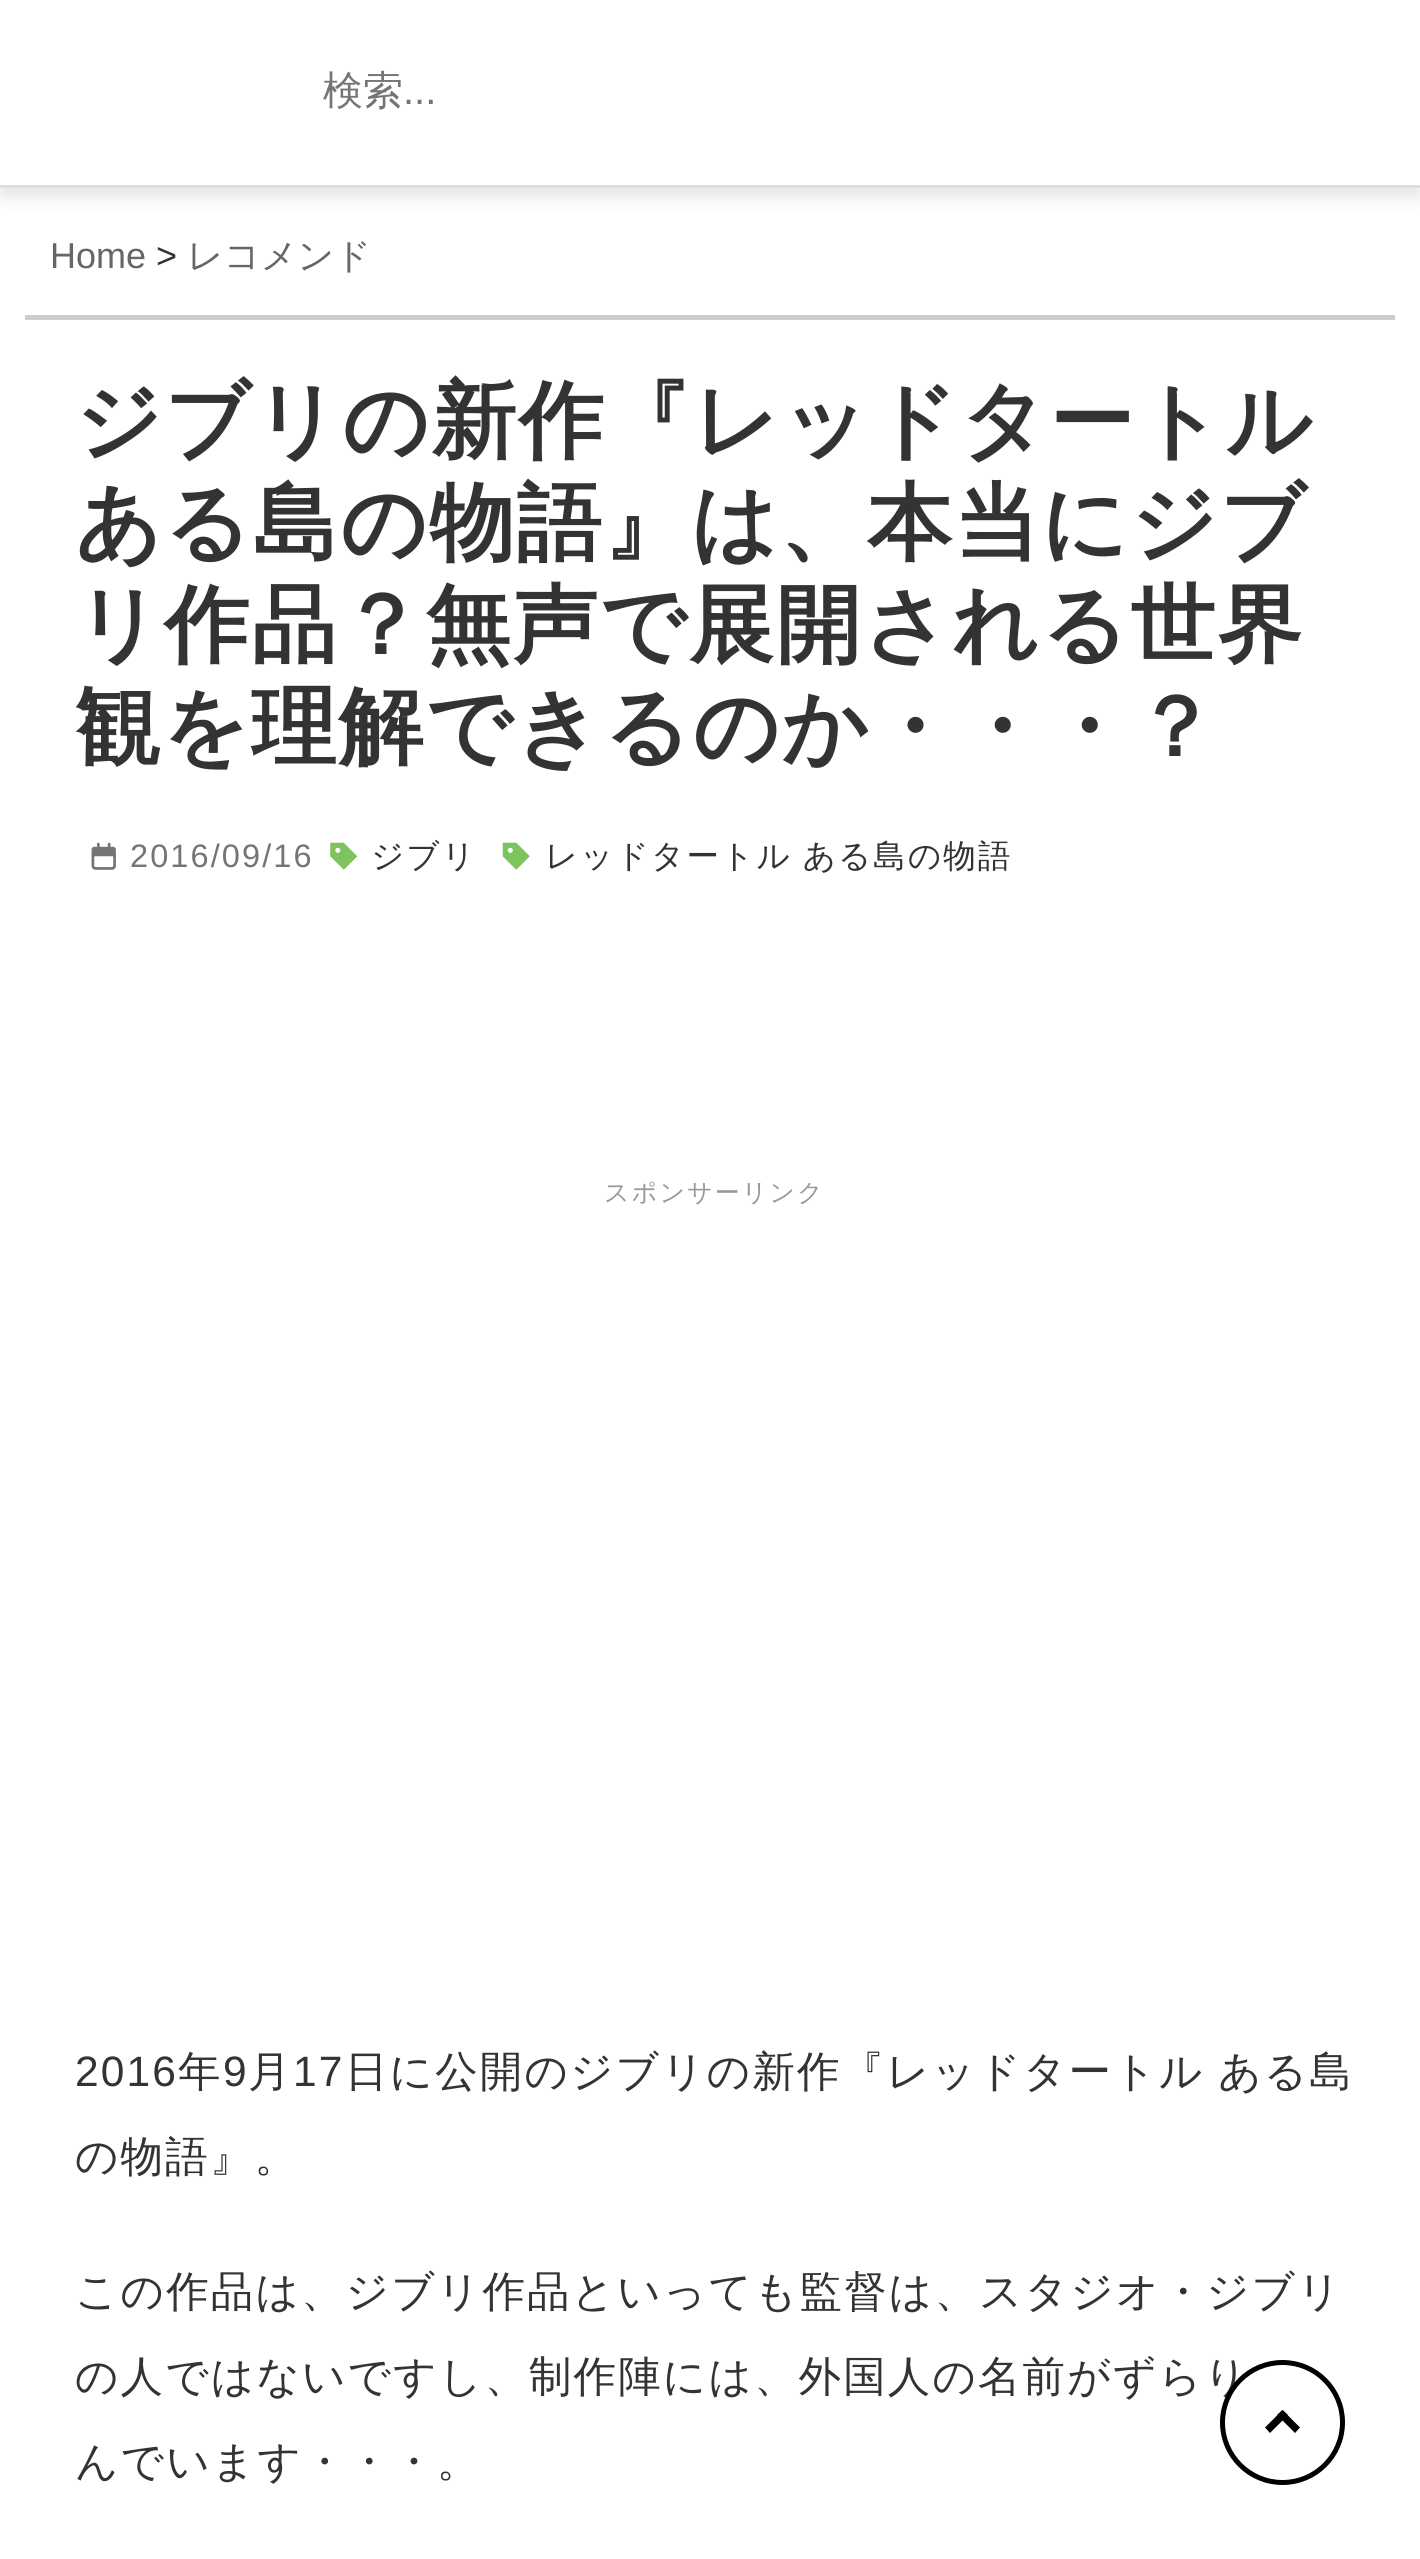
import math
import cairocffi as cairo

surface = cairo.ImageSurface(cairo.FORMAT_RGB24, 1420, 2559)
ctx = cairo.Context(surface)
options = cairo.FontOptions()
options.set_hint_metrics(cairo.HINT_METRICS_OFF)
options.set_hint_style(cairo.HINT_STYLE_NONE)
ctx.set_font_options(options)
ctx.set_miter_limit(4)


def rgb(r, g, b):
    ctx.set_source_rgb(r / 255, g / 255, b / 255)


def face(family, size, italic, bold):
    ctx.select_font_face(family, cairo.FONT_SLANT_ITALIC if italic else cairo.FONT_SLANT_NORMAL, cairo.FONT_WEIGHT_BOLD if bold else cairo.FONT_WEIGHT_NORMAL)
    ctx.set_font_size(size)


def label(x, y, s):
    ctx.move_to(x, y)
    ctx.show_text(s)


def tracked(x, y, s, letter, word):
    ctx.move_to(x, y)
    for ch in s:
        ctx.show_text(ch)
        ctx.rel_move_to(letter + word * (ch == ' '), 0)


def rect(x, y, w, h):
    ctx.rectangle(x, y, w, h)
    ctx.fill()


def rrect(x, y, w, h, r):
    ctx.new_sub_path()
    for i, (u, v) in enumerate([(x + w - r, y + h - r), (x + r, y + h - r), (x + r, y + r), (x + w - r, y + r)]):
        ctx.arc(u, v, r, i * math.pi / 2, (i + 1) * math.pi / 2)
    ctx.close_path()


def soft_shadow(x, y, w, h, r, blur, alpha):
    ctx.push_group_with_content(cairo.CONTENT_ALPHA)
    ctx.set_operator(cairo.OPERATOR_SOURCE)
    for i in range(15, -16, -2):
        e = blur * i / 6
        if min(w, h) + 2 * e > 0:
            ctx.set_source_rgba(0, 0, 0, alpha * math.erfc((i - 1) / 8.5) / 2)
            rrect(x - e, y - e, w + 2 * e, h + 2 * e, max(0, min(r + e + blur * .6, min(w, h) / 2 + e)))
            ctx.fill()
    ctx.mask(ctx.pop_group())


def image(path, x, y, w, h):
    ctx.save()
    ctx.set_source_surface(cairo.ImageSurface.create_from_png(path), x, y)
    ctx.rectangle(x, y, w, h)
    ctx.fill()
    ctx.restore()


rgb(255, 255, 255)
ctx.paint()
rgb(0, 0, 0)
soft_shadow(0, 10, 1420, 188, 0, 7.5, 0.1)
rgb(255, 255, 255)
rect(0, 0, 1420, 185)
rgb(221, 221, 221)
rect(0, 185, 1420, 3)
face('WenQuanYi Zen Hei Medium', 40, 0, 0)
rgb(118, 116, 116)
label(323, 104, '検索')
face('Liberation Sans', 40, 0, 0)
label(403, 104, '...')
rgb(204, 204, 204)
rect(25, 315, 1370, 5)
face('Liberation Sans', 36, 0, 0)
rgb(102, 102, 102)
label(50, 268, 'Home')
rgb(51, 51, 51)
label(156, 268, '>')
face('WenQuanYi Zen Hei Medium', 36, 0, 0)
rgb(102, 102, 102)
label(187, 268, 'レコメンド')
face('WenQuanYi Zen Hei', 85, 0, 1)
rgb(51, 51, 51)
tracked(75, 450, 'ジブリの新作『レッドタートル', 2.1, 0)
tracked(75, 552, 'ある島の物語』は、本当にジブ', 2.1, 0)
tracked(75, 654, 'リ作品？無声で展開される世界', 2.1, 0)
tracked(75, 756, '観を理解できるのか・・・？', 2.1, 0)
image('image0.png', 91, 842, 25, 28)
face('Liberation Sans', 32.5, 0, 0)
rgb(118, 116, 116)
tracked(130, 867, '2016/09/16', 2.1, 0)
image('image1.png', 330, 842, 28, 28)
face('WenQuanYi Zen Hei Medium', 32.5, 0, 0)
rgb(51, 51, 51)
tracked(371, 867, 'ジブリ', 2.1, 0)
image('image2.png', 502, 842, 28, 28)
tracked(545, 867, 'レッドタートル ある島の物語', 2.1, -1)
face('WenQuanYi Zen Hei Medium', 25, 0, 0)
rgb(153, 153, 153)
tracked(604, 1201, 'スポンサーリンク', 2.1, 0)
face('Liberation Sans', 42.5, 0, 0)
rgb(51, 51, 51)
tracked(75, 2086, '2016', 2.1, 0)
face('WenQuanYi Zen Hei Medium', 42.5, 0, 0)
tracked(178, 2086, '年', 2.1, 0)
face('Liberation Sans', 42.5, 0, 0)
tracked(223, 2086, '9', 2.1, 0)
face('WenQuanYi Zen Hei Medium', 42.5, 0, 0)
tracked(248, 2086, '月', 2.1, 0)
face('Liberation Sans', 42.5, 0, 0)
tracked(293, 2086, '17', 2.1, 0)
face('WenQuanYi Zen Hei Medium', 42.5, 0, 0)
tracked(345, 2086, '日に公開のジブリの新作『レッドタートル ある島', 2.1, -1)
tracked(75, 2171, 'の物語』。', 2.1, 0)
tracked(75, 2306, 'この作品は、ジブリ作品といっても監督は、スタジオ・ジブリ', 2.1, 0)
tracked(75, 2391, 'の人ではないですし、制作陣には、外国人の名前がずらり', 2.1, 0)
tracked(75, 2476, 'んでいます・・・。', 2.1, 0)
rgb(255, 255, 255)
ctx.new_path()
ctx.arc(1282.5, 2422.5, 60, 0, 2 * math.pi)
ctx.fill_preserve()
rgb(0, 0, 0)
ctx.set_line_width(5)
ctx.stroke()
ctx.new_path()
ctx.move_to(1265, 2427.5)
ctx.line_to(1282.5, 2410)
ctx.line_to(1288, 2415)
ctx.line_to(1270, 2433)
ctx.close_path()
ctx.fill()
ctx.new_path()
ctx.move_to(1277, 2415)
ctx.line_to(1282.5, 2410)
ctx.line_to(1300, 2427.5)
ctx.line_to(1295, 2433)
ctx.close_path()
ctx.fill()
surface.write_to_png('render.png')
